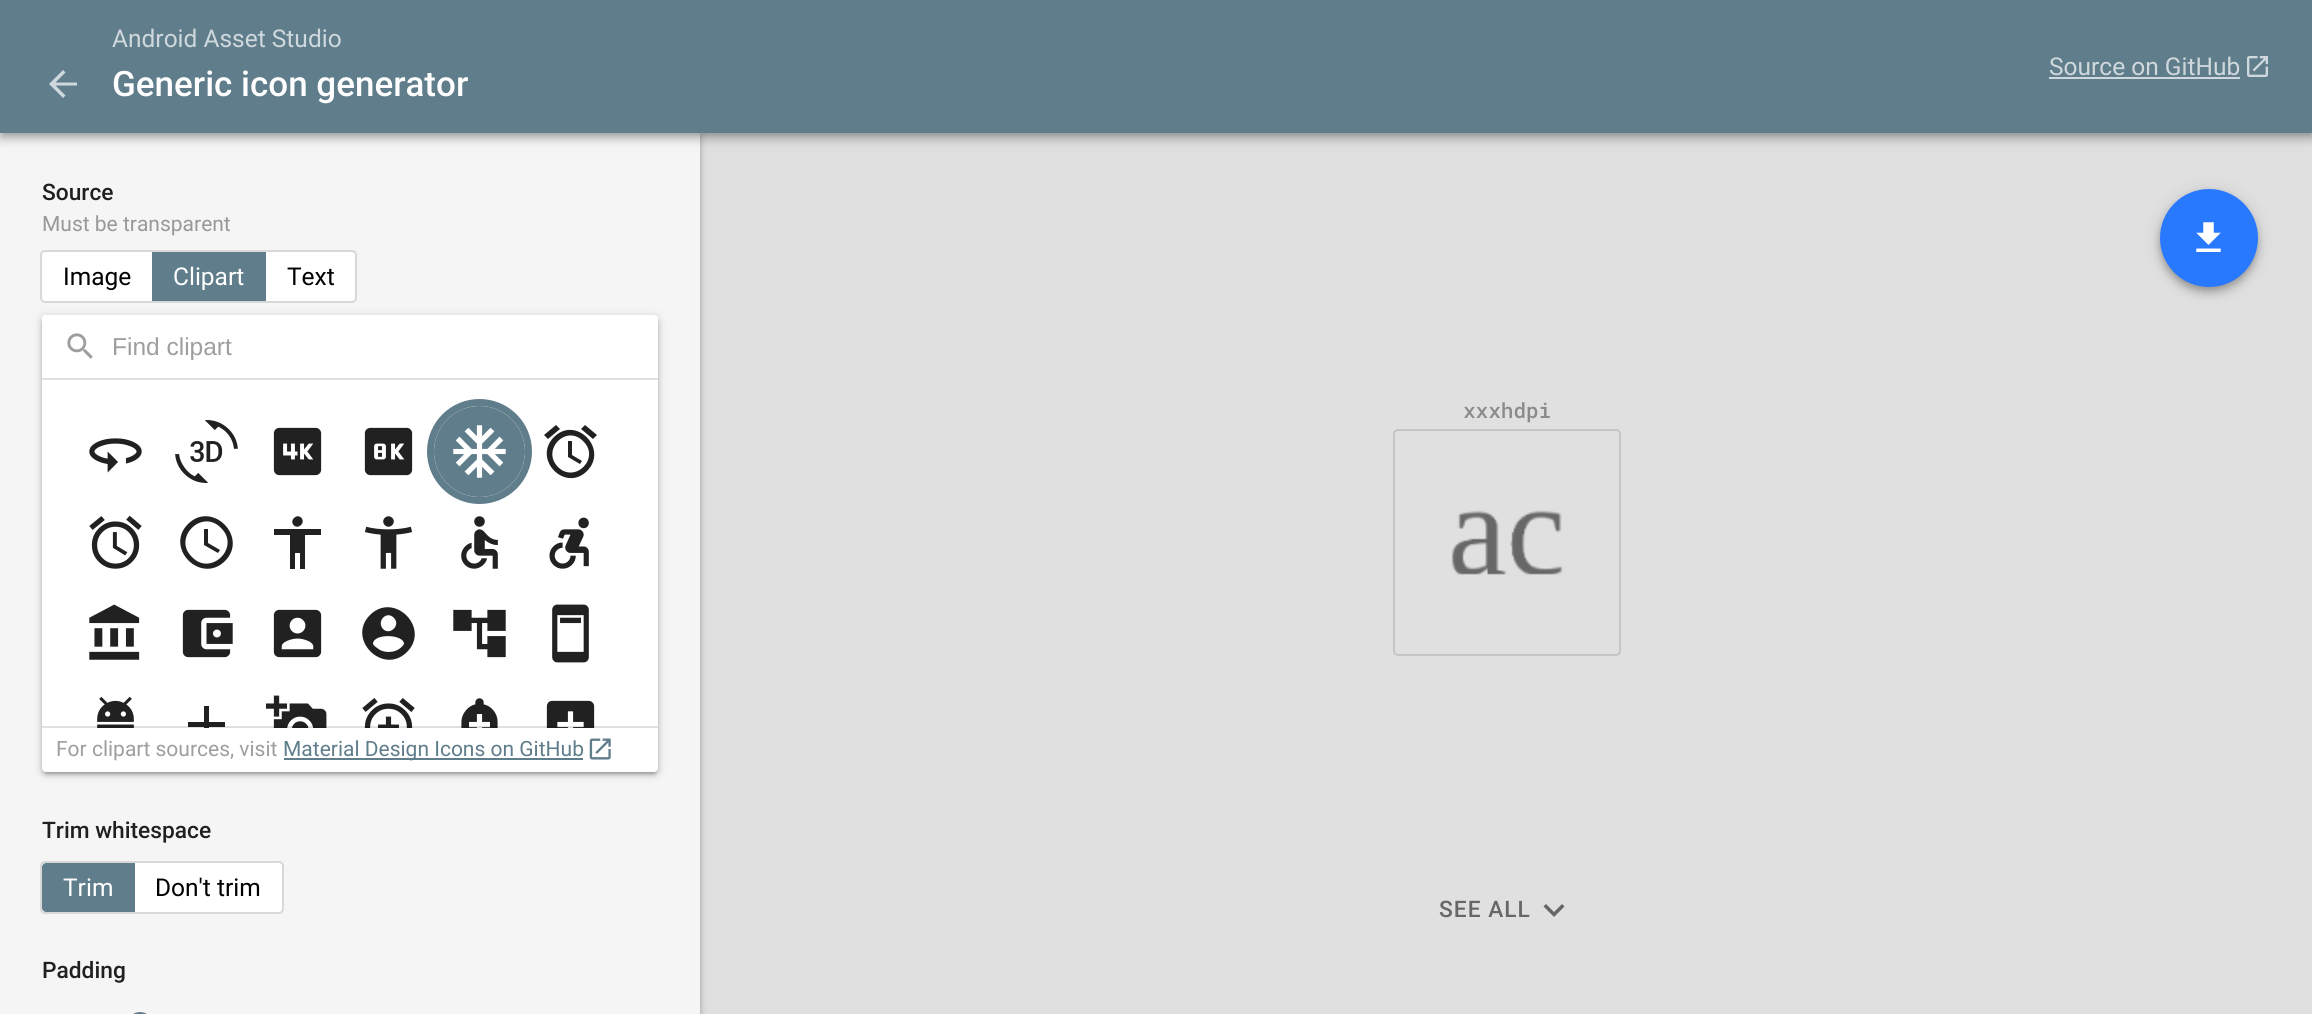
import math
import cairocffi as cairo

surface = cairo.ImageSurface(cairo.FORMAT_RGB24, 2312, 1014)
ctx = cairo.Context(surface)
options = cairo.FontOptions()
options.set_hint_metrics(cairo.HINT_METRICS_OFF)
options.set_hint_style(cairo.HINT_STYLE_NONE)
ctx.set_font_options(options)
ctx.set_miter_limit(4)


def rgb(r, g, b):
    ctx.set_source_rgb(r / 255, g / 255, b / 255)


def face(family, size, italic, bold):
    ctx.select_font_face(family, cairo.FONT_SLANT_ITALIC if italic else cairo.FONT_SLANT_NORMAL, cairo.FONT_WEIGHT_BOLD if bold else cairo.FONT_WEIGHT_NORMAL)
    ctx.set_font_size(size)


def label(x, y, s):
    ctx.move_to(x, y)
    ctx.show_text(s)


def tracked(x, y, s, letter, word):
    ctx.move_to(x, y)
    for ch in s:
        ctx.show_text(ch)
        ctx.rel_move_to(letter + word * (ch == ' '), 0)


def rect(x, y, w, h):
    ctx.rectangle(x, y, w, h)
    ctx.fill()


def rrect(x, y, w, h, r):
    ctx.new_sub_path()
    for i, (u, v) in enumerate([(x + w - r, y + h - r), (x + r, y + h - r), (x + r, y + r), (x + w - r, y + r)]):
        ctx.arc(u, v, r, i * math.pi / 2, (i + 1) * math.pi / 2)
    ctx.close_path()


def soft_shadow(x, y, w, h, r, blur, alpha):
    ctx.push_group_with_content(cairo.CONTENT_ALPHA)
    ctx.set_operator(cairo.OPERATOR_SOURCE)
    for i in range(15, -16, -2):
        e = blur * i / 6
        if min(w, h) + 2 * e > 0:
            ctx.set_source_rgba(0, 0, 0, alpha * math.erfc((i - 1) / 8.5) / 2)
            rrect(x - e, y - e, w + 2 * e, h + 2 * e, max(0, min(r + e + blur * .6, min(w, h) / 2 + e)))
            ctx.fill()
    ctx.mask(ctx.pop_group())


def image(path, x, y, w, h):
    ctx.save()
    ctx.set_source_surface(cairo.ImageSurface.create_from_png(path), x, y)
    ctx.rectangle(x, y, w, h)
    ctx.fill()
    ctx.restore()


rgb(224, 224, 224)
ctx.paint()
rgb(0, 0, 0)
soft_shadow(0, 137, 700, 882, 0, 2, 0.14)
soft_shadow(0, 135, 700, 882, 0, 4.5, 0.2)
rgb(245, 245, 245)
rect(0, 133, 700, 881)
rgb(0, 0, 0)
soft_shadow(0, 2, 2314, 133, 0, 9, 0.12)
soft_shadow(0, 7, 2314, 133, 0, 4.5, 0.14)
soft_shadow(2, 5, 2310, 130, 0, 3.5, 0.2)
rgb(96, 125, 139)
rect(0, 0, 2312, 133)
face('Roboto', 24.5, 0, 0)
rgb(207, 216, 220)
label(112, 47, 'Android Asset Studio')
label(2049, 75, 'Source on GitHub')
rect(2049, 77, 191, 2)
image('image0.png', 2247, 56, 21, 21)
ctx.new_path()
ctx.move_to(77, 82.5)
ctx.line_to(77, 85.5)
ctx.line_to(55.5, 85.5)
ctx.line_to(65.5, 95.5)
ctx.line_to(63, 98)
ctx.line_to(49, 84)
ctx.line_to(63, 70)
ctx.line_to(65.5, 72.5)
ctx.line_to(55.5, 82.5)
ctx.close_path()
ctx.fill()
face('Roboto Medium', 35, 0, 0)
rgb(255, 255, 255)
label(112, 96, 'Generic icon generator')
face('Roboto Medium', 22.75, 0, 0)
rgb(32, 32, 32)
label(42, 200, 'Source')
face('Roboto', 21, 0, 0)
rgb(152, 152, 152)
label(42, 231, 'Must be transparent')
rrect(41, 251, 315, 51, 4)
rgb(216, 216, 216)
ctx.stroke()
rgb(255, 255, 255)
rrect(42, 252, 313, 49, 4)
ctx.fill()
face('Roboto', 24.5, 0, 0)
rgb(0, 0, 0)
label(63, 285, 'Image')
rgb(96, 125, 139)
rect(152, 252, 114, 49)
rgb(255, 255, 255)
label(173, 285, 'Clipart')
rgb(0, 0, 0)
label(287, 285, 'Text')
rgb(0, 0, 0)
soft_shadow(46, 324, 609, 450, 0, 1, 0.12)
soft_shadow(42, 319, 616, 456, 4, 2, 0.14)
soft_shadow(42, 317, 616, 457, 4, 4.5, 0.2)
rgb(255, 255, 255)
rrect(42, 315, 616, 457, 4)
ctx.fill()
ctx.new_path()
ctx.move_to(46, 315)
ctx.line_to(654, 315)
ctx.curve_to(656, 315, 658, 317, 658, 319)
ctx.line_to(658, 378)
ctx.line_to(42, 378)
ctx.line_to(42, 319)
ctx.curve_to(42, 317, 44, 315, 46, 315)
ctx.close_path()
ctx.fill()
image('image1.png', 67, 333, 26, 26)
rgb(224, 224, 224)
rect(42, 378, 616, 2)
face('Liberation Sans', 24.5, 0, 0)
rgb(158, 158, 158)
label(112, 355, 'Find clipart')
image('image2.png', 89, 438, 53, 35)
image('image3.png', 175, 420, 63, 63)
image('image4.png', 273, 427, 49, 49)
image('image5.png', 364, 427, 49, 49)
ctx.arc(479.5, 451.5, 49, 0, 2 * math.pi)
rgb(96, 125, 139)
ctx.set_line_width(7)
ctx.stroke()
ctx.arc(479.5, 451.5, 45.5, 0, 2 * math.pi)
ctx.fill()
image('image6.png', 453, 425, 53, 53)
rgb(33, 33, 33)
ctx.new_path()
ctx.move_to(558, 467)
ctx.curve_to(575, 484, 601, 458, 583, 441)
ctx.curve_to(566, 424, 541, 450, 558, 467)
ctx.close_path()
ctx.move_to(554, 437)
ctx.curve_to(576, 415, 609, 449, 587, 471)
ctx.curve_to(565, 493, 532, 459, 554, 437)
ctx.close_path()
ctx.move_to(572, 441)
ctx.line_to(572, 455)
ctx.line_to(582, 461)
ctx.line_to(580, 464)
ctx.line_to(568, 457)
ctx.line_to(568, 441)
ctx.close_path()
ctx.move_to(560, 429)
ctx.line_to(548, 439)
ctx.line_to(544, 435)
ctx.line_to(556, 425)
ctx.close_path()
ctx.move_to(597, 435)
ctx.line_to(593, 439)
ctx.line_to(581, 429)
ctx.line_to(585, 425)
ctx.close_path()
ctx.fill()
image('image7.png', 89, 515, 53, 54)
ctx.new_path()
ctx.move_to(208, 529)
ctx.line_to(208, 543)
ctx.line_to(220, 550)
ctx.line_to(218, 553)
ctx.line_to(204, 545)
ctx.line_to(204, 529)
ctx.close_path()
ctx.move_to(192, 557)
ctx.curve_to(211, 577, 241, 547, 221, 528)
ctx.curve_to(202, 508, 172, 538, 192, 557)
ctx.close_path()
ctx.move_to(188, 524)
ctx.curve_to(212, 500, 249, 537, 225, 561)
ctx.curve_to(201, 585, 164, 548, 188, 524)
ctx.close_path()
ctx.fill()
ctx.new_path()
ctx.move_to(321, 535)
ctx.line_to(305, 535)
ctx.line_to(305, 569)
ctx.line_to(300, 569)
ctx.line_to(300, 553)
ctx.line_to(295, 553)
ctx.line_to(295, 569)
ctx.line_to(290, 569)
ctx.line_to(290, 535)
ctx.line_to(274, 535)
ctx.line_to(274, 529)
ctx.line_to(321, 529)
ctx.close_path()
ctx.move_to(294, 518)
ctx.curve_to(299, 513, 306, 520, 301, 525)
ctx.curve_to(296, 530, 289, 523, 294, 518)
ctx.close_path()
ctx.fill()
image('image8.png', 365, 516, 48, 53)
image('image9.png', 461, 516, 37, 53)
image('image10.png', 549, 517, 40, 52)
image('image11.png', 89, 604, 51, 56)
image('image12.png', 182, 609, 51, 49)
image('image13.png', 273, 609, 49, 49)
ctx.new_path()
ctx.move_to(380, 650)
ctx.curve_to(388, 654, 399, 652, 404, 644)
ctx.curve_to(404, 634, 373, 633, 373, 644)
ctx.curve_to(374, 646, 377, 648, 380, 650)
ctx.close_path()
ctx.move_to(394, 618)
ctx.curve_to(387, 610, 376, 621, 383, 629)
ctx.curve_to(390, 636, 401, 625, 394, 618)
ctx.close_path()
ctx.move_to(370, 615)
ctx.curve_to(394, 591, 431, 628, 407, 652)
ctx.curve_to(383, 676, 346, 639, 370, 615)
ctx.close_path()
ctx.fill()
image('image14.png', 453, 609, 53, 49)
image('image15.png', 552, 604, 37, 59)
rgb(224, 224, 224)
rect(42, 726, 616, 2)
image('image16.png', 97, 696, 37, 32)
ctx.save()
ctx.rectangle(42, 378, 616, 350)
ctx.clip()
ctx.set_source_rgba(0, 0, 0, 0.87)
ctx.new_path()
ctx.move_to(225, 727)
ctx.line_to(209, 727)
ctx.line_to(209, 743)
ctx.line_to(204, 743)
ctx.line_to(204, 727)
ctx.line_to(188, 727)
ctx.line_to(188, 722)
ctx.line_to(204, 722)
ctx.line_to(204, 706)
ctx.line_to(209, 706)
ctx.line_to(209, 722)
ctx.line_to(225, 722)
ctx.close_path()
ctx.fill()
ctx.restore()
image('image17.png', 266, 695, 61, 33)
image('image18.png', 362, 698, 53, 30)
image('image19.png', 461, 698, 37, 30)
image('image20.png', 546, 700, 49, 28)
face('Roboto', 21, 0, 0)
rgb(158, 158, 158)
label(56, 756, 'For clipart sources, visit')
rgb(96, 125, 139)
rect(284, 758, 299, 2)
label(283, 756, 'Material Design Icons on GitHub')
image('image21.png', 589, 738, 22, 22)
face('Roboto Medium', 22.75, 0, 0)
rgb(32, 32, 32)
label(42, 838, 'Trim whitespace')
rrect(41, 862, 242, 51, 4)
rgb(216, 216, 216)
ctx.set_line_width(2)
ctx.stroke()
rgb(255, 255, 255)
rrect(42, 863, 240, 49, 4)
ctx.fill()
rgb(96, 125, 139)
ctx.new_path()
ctx.move_to(46, 863)
ctx.line_to(135, 863)
ctx.line_to(135, 912)
ctx.line_to(46, 912)
ctx.curve_to(44, 912, 42, 910, 42, 908)
ctx.line_to(42, 867)
ctx.curve_to(42, 865, 44, 863, 46, 863)
ctx.close_path()
ctx.fill()
face('Roboto', 24.5, 0, 0)
rgb(255, 255, 255)
label(63, 896, 'Trim')
rgb(0, 0, 0)
label(155, 896, 'Don\'t trim')
face('Roboto Medium', 22.75, 0, 0)
rgb(32, 32, 32)
label(42, 978, 'Padding')
rgb(96, 125, 139)
ctx.new_path()
ctx.move_to(140, 1012)
ctx.curve_to(147.5, 1012, 154, 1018.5, 154, 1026)
ctx.line_to(154, 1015)
ctx.line_to(126, 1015)
ctx.line_to(126, 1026)
ctx.curve_to(126, 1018.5, 132.5, 1012, 140, 1012)
ctx.close_path()
ctx.fill()
rgb(0, 0, 0)
soft_shadow(2160, 191, 98, 98, 49, 9, 0.12)
soft_shadow(2160, 196, 98, 98, 49, 4.5, 0.14)
soft_shadow(2161, 194, 95, 95, 47.5, 3.5, 0.2)
rgb(41, 121, 255)
ctx.arc(2209, 238, 49, 0, 2 * math.pi)
ctx.fill()
image('image22.png', 2196, 222, 25, 30)
face('Roboto Mono Medium', 21, 0, 0)
rgb(139, 139, 139)
label(1463, 418, 'xxxhdpi')
rrect(1394, 430, 226, 225, 4)
rgb(197, 197, 197)
ctx.stroke()
image('image23.png', 1451, 510, 112, 65)
face('Roboto Medium', 22.75, 0, 0)
rgb(103, 103, 103)
tracked(1439, 917, 'SEE ALL', 1, 0)
ctx.new_path()
ctx.move_to(1562, 904)
ctx.line_to(1564.5, 906.5)
ctx.line_to(1554, 917)
ctx.line_to(1543.5, 906.5)
ctx.line_to(1546, 904)
ctx.line_to(1554, 912)
ctx.close_path()
ctx.fill()
surface.write_to_png('render.png')
